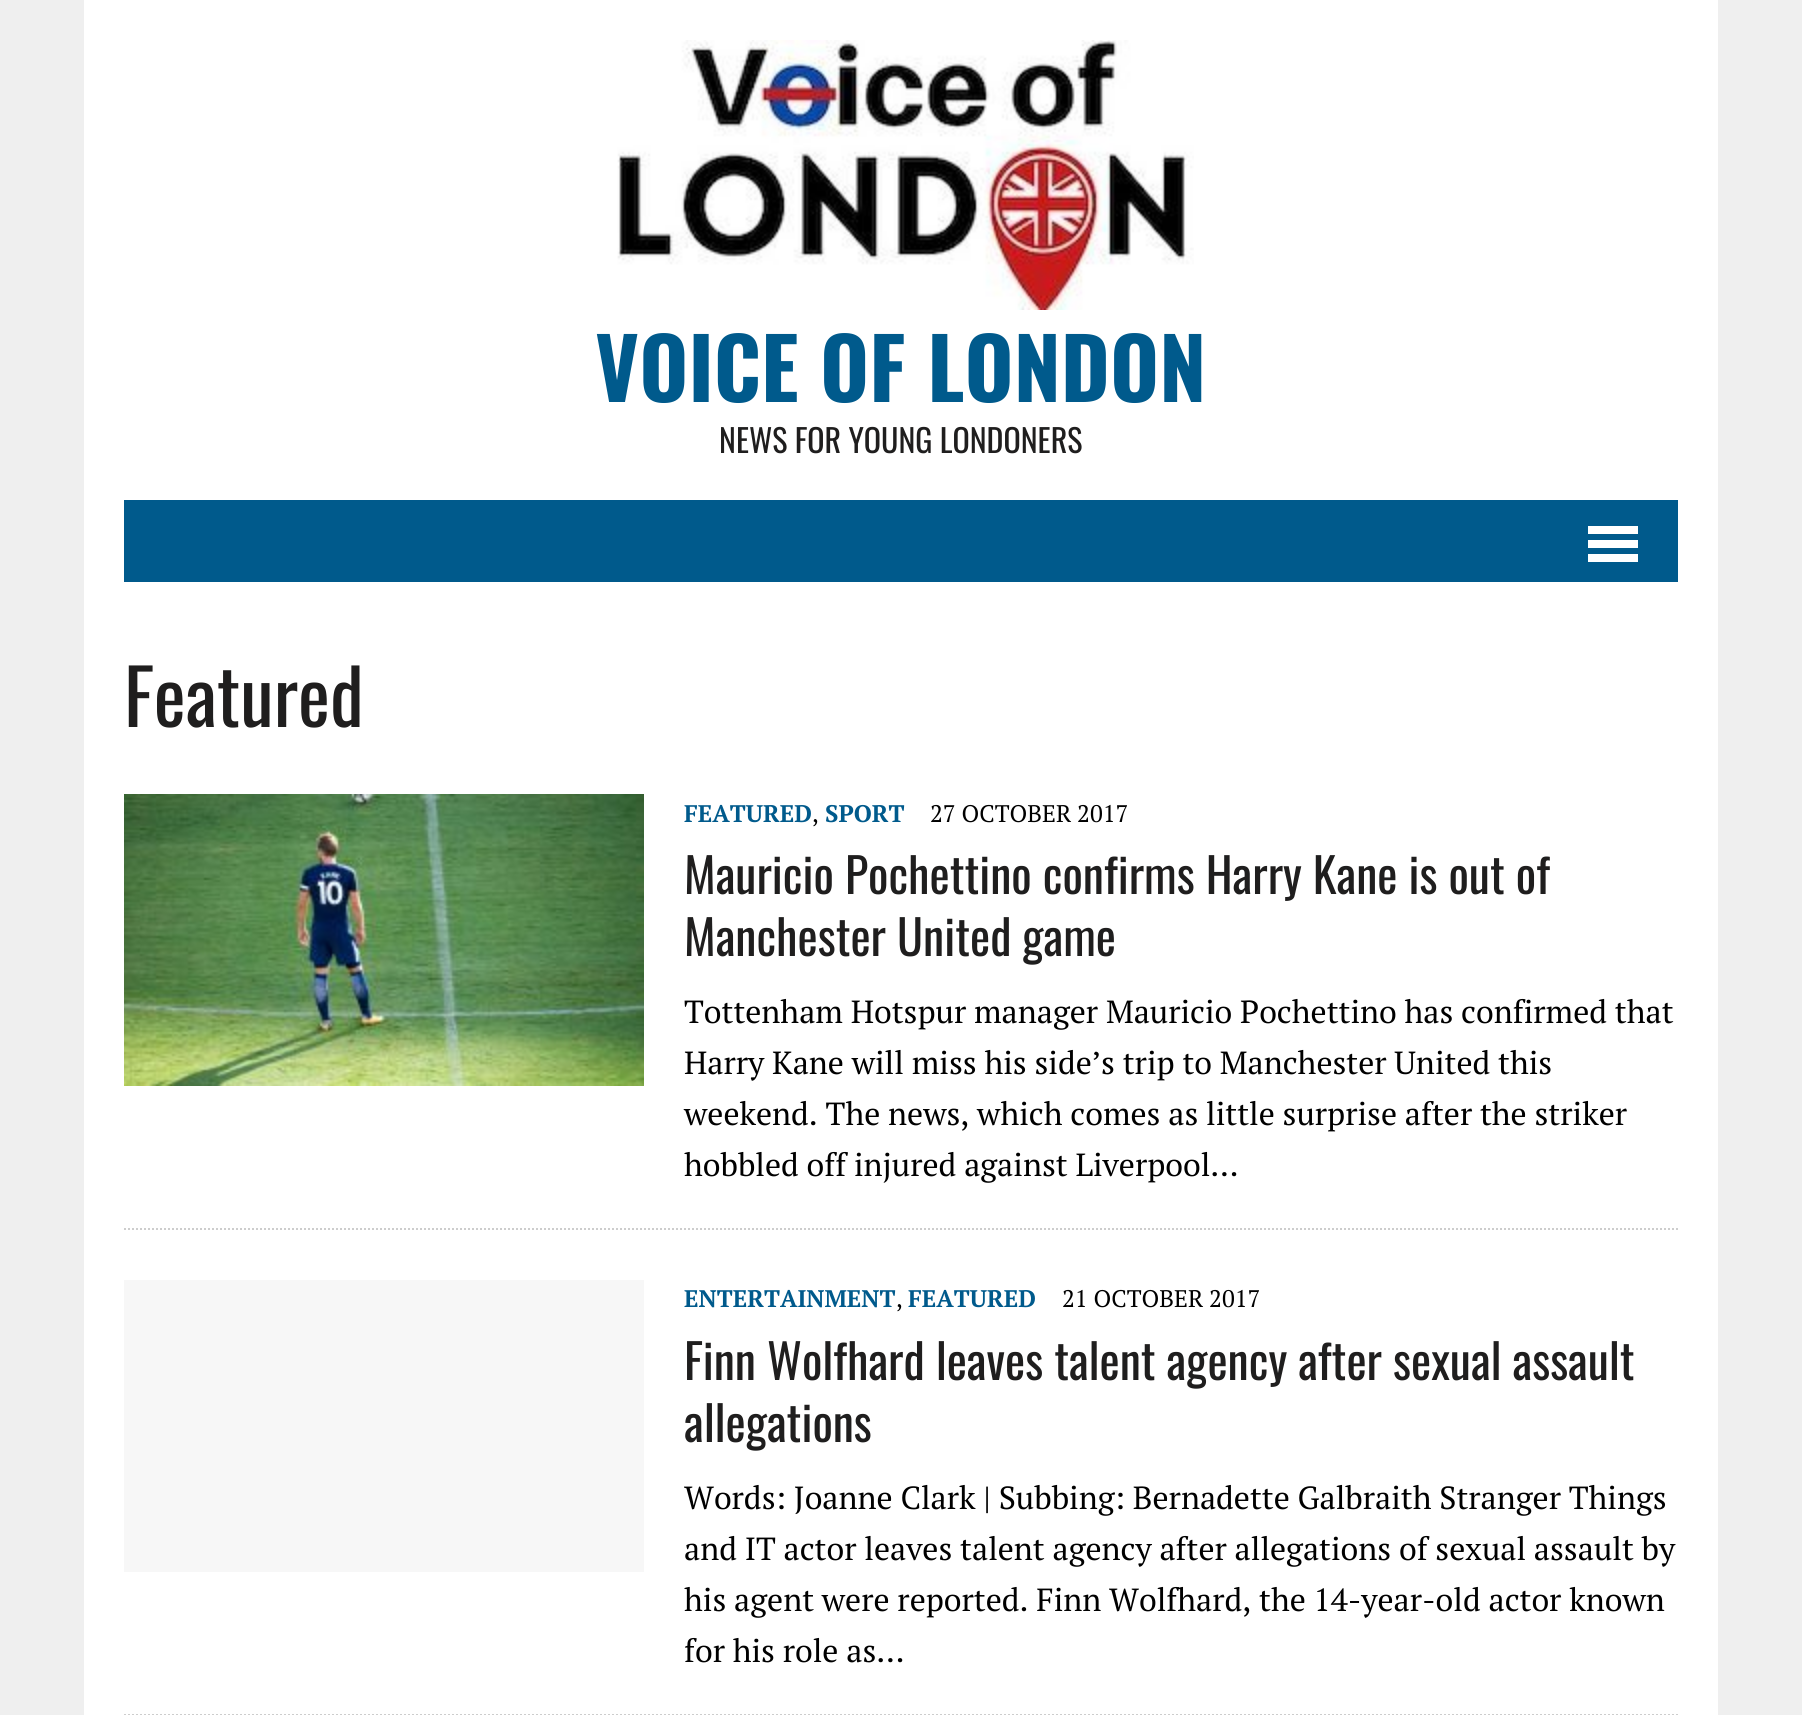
import math
import cairocffi as cairo

surface = cairo.ImageSurface(cairo.FORMAT_RGB24, 1802, 1715)
ctx = cairo.Context(surface)
options = cairo.FontOptions()
options.set_hint_metrics(cairo.HINT_METRICS_OFF)
options.set_hint_style(cairo.HINT_STYLE_NONE)
ctx.set_font_options(options)
ctx.set_miter_limit(4)


def rgb(r, g, b):
    ctx.set_source_rgb(r / 255, g / 255, b / 255)


def face(family, size, italic, bold):
    ctx.select_font_face(family, cairo.FONT_SLANT_ITALIC if italic else cairo.FONT_SLANT_NORMAL, cairo.FONT_WEIGHT_BOLD if bold else cairo.FONT_WEIGHT_NORMAL)
    ctx.set_font_size(size)


def label(x, y, s):
    ctx.move_to(x, y)
    ctx.show_text(s)


def rect(x, y, w, h):
    ctx.rectangle(x, y, w, h)
    ctx.fill()


def image(path, x, y, w, h):
    ctx.save()
    ctx.set_source_surface(cairo.ImageSurface.create_from_png(path), x, y)
    ctx.rectangle(x, y, w, h)
    ctx.fill()
    ctx.restore()


rgb(239, 239, 239)
ctx.paint()
rgb(255, 255, 255)
rect(84, 0, 1634, 1715)
image('image0.png', 617, 40, 577, 270)
face('Oswald', 84, 0, 1)
rgb(0, 90, 140)
label(595, 402, 'VOICE OF LONDON')
face('Oswald', 32, 0, 0)
rgb(31, 30, 30)
label(719, 453, 'NEWS FOR YOUNG LONDONERS')
rgb(0, 90, 140)
rect(124, 500, 1554, 82)
rgb(255, 255, 255)
rect(1588, 526, 50, 8)
rect(1588, 540, 50, 8)
rect(1588, 554, 50, 8)
face('Oswald', 76, 0, 0)
rgb(31, 30, 30)
label(124, 727, 'Featured')
image('image1.png', 124, 794, 520, 292)
face('PT Serif', 24, 0, 1)
rgb(0, 90, 140)
label(684, 822, 'FEATURED')
face('PT Serif', 24, 0, 0)
rgb(0, 0, 0)
label(812, 822, ',')
face('PT Serif', 24, 0, 1)
rgb(0, 90, 140)
label(825, 822, 'SPORT')
face('PT Serif', 24, 0, 0)
rgb(0, 0, 0)
label(930, 822, '27 OCTOBER 2017')
face('Oswald', 48, 0, 0)
rgb(31, 30, 30)
label(684, 894, 'Mauricio Pochettino confirms Harry Kane is out of')
label(684, 956, 'Manchester United game')
face('PT Serif', 32, 0, 0)
rgb(0, 0, 0)
label(684, 1023, 'Tottenham Hotspur manager Mauricio Pochettino has confirmed that')
label(684, 1074, 'Harry Kane will miss his side’s trip to Manchester United this')
label(684, 1125, 'weekend. The news, which comes as little surprise after the striker')
label(684, 1176, 'hobbled off injured against Liverpool…')
ctx.new_path()
ctx.move_to(124, 1229)
ctx.line_to(1678, 1229)
rgb(205, 205, 205)
ctx.set_dash([2, 2])
ctx.stroke()
rgb(247, 247, 247)
rect(124, 1280, 520, 292)
face('PT Serif', 24, 0, 1)
rgb(0, 90, 140)
label(684, 1307, 'ENTERTAINMENT')
face('PT Serif', 24, 0, 0)
rgb(0, 0, 0)
label(896, 1307, ',')
face('PT Serif', 24, 0, 1)
rgb(0, 90, 140)
label(908, 1307, 'FEATURED')
face('PT Serif', 24, 0, 0)
rgb(0, 0, 0)
label(1062, 1307, '21 OCTOBER 2017')
face('Oswald', 48, 0, 0)
rgb(31, 30, 30)
label(684, 1380, 'Finn Wolfhard leaves talent agency after sexual assault')
label(684, 1442, 'allegations')
face('PT Serif', 32, 0, 0)
rgb(0, 0, 0)
label(684, 1509, 'Words: Joanne Clark | Subbing: Bernadette Galbraith Stranger Things')
label(684, 1560, 'and IT actor leaves talent agency after allegations of sexual assault by')
label(684, 1611, 'his agent were reported. Finn Wolfhard, the 14-year-old actor known')
label(684, 1662, 'for his role as…')
ctx.new_path()
ctx.move_to(124, 1715)
ctx.line_to(1678, 1715)
rgb(205, 205, 205)
ctx.stroke()
surface.write_to_png('render.png')
